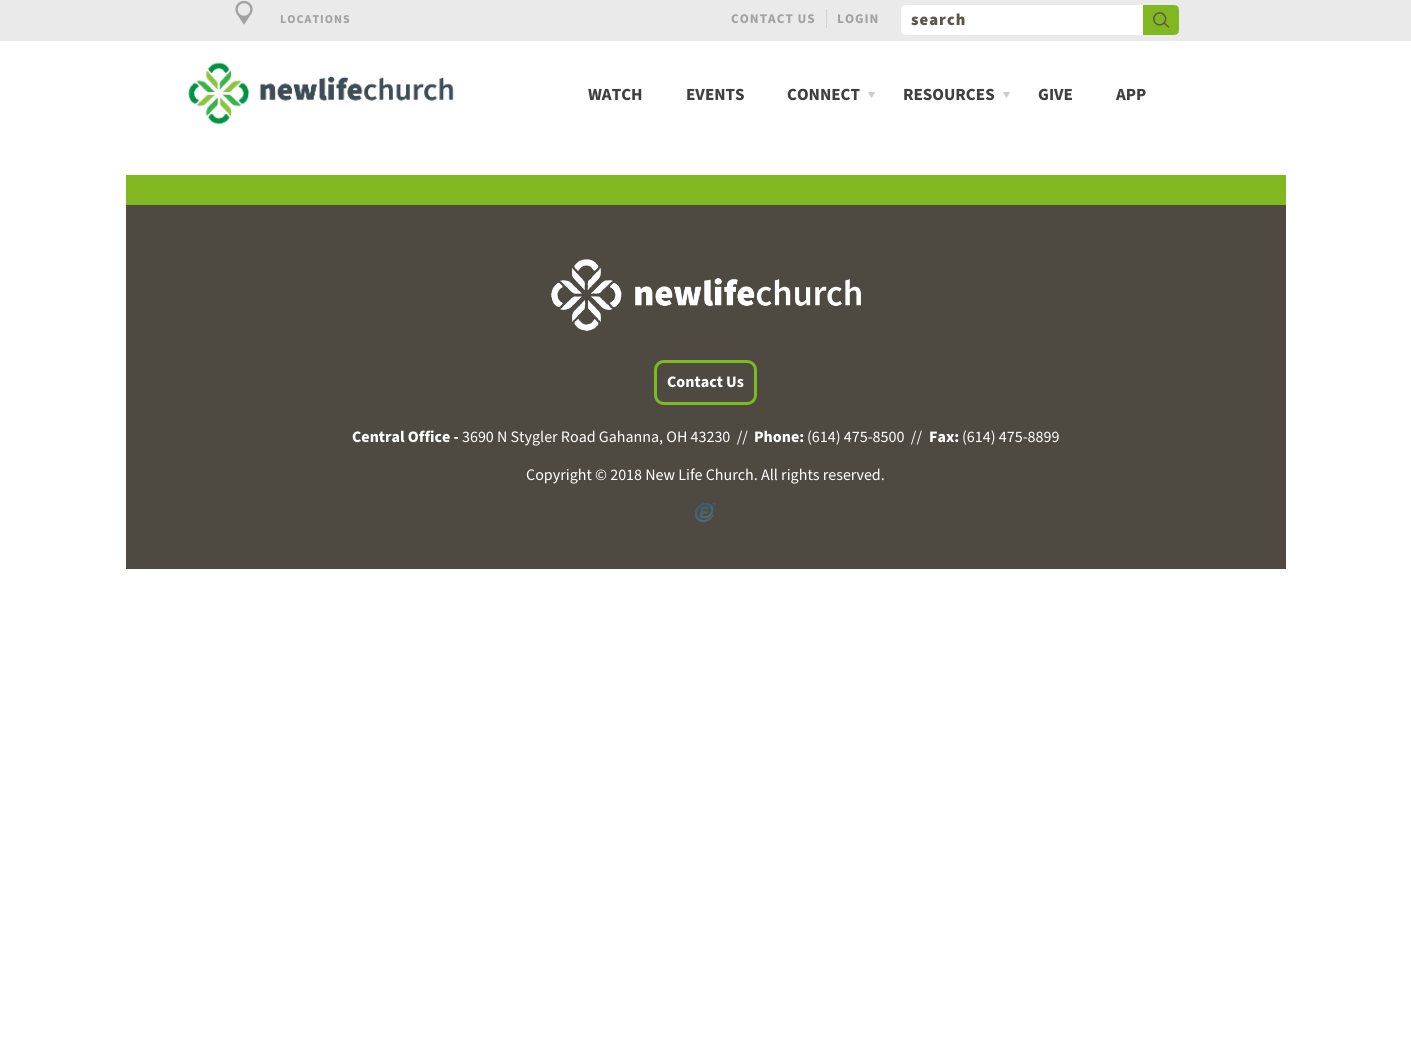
import math
import cairocffi as cairo

surface = cairo.ImageSurface(cairo.FORMAT_RGB24, 1411, 1054)
ctx = cairo.Context(surface)
options = cairo.FontOptions()
options.set_hint_metrics(cairo.HINT_METRICS_OFF)
options.set_hint_style(cairo.HINT_STYLE_NONE)
ctx.set_font_options(options)
ctx.set_miter_limit(4)


def rgb(r, g, b):
    ctx.set_source_rgb(r / 255, g / 255, b / 255)


def face(family, size, italic, bold):
    ctx.select_font_face(family, cairo.FONT_SLANT_ITALIC if italic else cairo.FONT_SLANT_NORMAL, cairo.FONT_WEIGHT_BOLD if bold else cairo.FONT_WEIGHT_NORMAL)
    ctx.set_font_size(size)


def label(x, y, s):
    ctx.move_to(x, y)
    ctx.show_text(s)


def tracked(x, y, s, letter, word):
    ctx.move_to(x, y)
    for ch in s:
        ctx.show_text(ch)
        ctx.rel_move_to(letter + word * (ch == ' '), 0)


def rect(x, y, w, h):
    ctx.rectangle(x, y, w, h)
    ctx.fill()


def rrect(x, y, w, h, r):
    ctx.new_sub_path()
    for i, (u, v) in enumerate([(x + w - r, y + h - r), (x + r, y + h - r), (x + r, y + r), (x + w - r, y + r)]):
        ctx.arc(u, v, r, i * math.pi / 2, (i + 1) * math.pi / 2)
    ctx.close_path()


def image(path, x, y, w, h):
    ctx.save()
    ctx.set_source_surface(cairo.ImageSurface.create_from_png(path), x, y)
    ctx.rectangle(x, y, w, h)
    ctx.fill()
    ctx.restore()


rgb(255, 255, 255)
ctx.paint()
rgb(234, 234, 234)
rect(0, 0, 1411, 41)
image('image0.png', 235, 0, 18, 25)
face('Source Sans Pro', 12, 0, 1)
rgb(162, 162, 162)
tracked(280, 23, 'LOCATIONS', 1, 0)
face('Source Sans Pro', 13.25, 0, 1)
tracked(731, 23, 'CONTACT US', 1, 0)
tracked(837, 23, 'LOGIN', 1, 0)
rgb(212, 206, 220)
rect(826, 9, 1, 19)
rgb(255, 255, 255)
ctx.new_path()
ctx.move_to(906, 5)
ctx.line_to(1143, 5)
ctx.line_to(1143, 35)
ctx.line_to(906, 35)
ctx.curve_to(903, 35, 901, 33, 901, 30)
ctx.line_to(901, 10)
ctx.curve_to(901, 7, 903, 5, 906, 5)
ctx.close_path()
ctx.fill()
face('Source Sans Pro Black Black', 16.5, 0, 0)
rgb(92, 85, 75)
tracked(911, 25, 'search', 1, 0)
rgb(129, 183, 33)
ctx.new_path()
ctx.move_to(1143, 5)
ctx.line_to(1174, 5)
ctx.curve_to(1177, 5, 1179, 7, 1179, 10)
ctx.line_to(1179, 30)
ctx.curve_to(1179, 33, 1177, 35, 1174, 35)
ctx.line_to(1143, 35)
ctx.close_path()
ctx.fill()
image('image1.png', 1153, 12, 17, 16)
image('image2.png', 188, 62, 266, 63)
face('Source Sans Pro', 17, 0, 1)
rgb(64, 64, 64)
label(588, 100, 'WATCH')
label(686, 100, 'EVENTS')
label(787, 100, 'CONNECT')
image('image3.png', 868, 92, 7, 6)
label(903, 100, 'RESOURCES')
image('image3.png', 1003, 92, 7, 6)
label(1038, 100, 'GIVE')
label(1116, 100, 'APP')
rgb(129, 183, 33)
rect(126, 175, 1160, 30)
rgb(78, 74, 65)
rect(126, 205, 1160, 364)
image('image4.png', 551, 259, 310, 72)
rrect(655.5, 361.5, 100, 42, 8.5)
rgb(129, 183, 33)
ctx.set_line_width(3)
ctx.stroke()
face('Source Sans Pro', 16, 0, 1)
rgb(255, 255, 255)
label(667, 387, 'Contact Us')
label(352, 442, 'Central Office -')
face('Source Sans Pro', 16, 0, 0)
label(462, 442, '3690 N Stygler Road Gahanna, OH 43230  //')
face('Source Sans Pro', 16, 0, 1)
label(754, 442, 'Phone:')
face('Source Sans Pro', 16, 0, 0)
label(807, 442, '(614) 475-8500  //')
face('Source Sans Pro', 16, 0, 1)
label(929, 442, 'Fax:')
face('Source Sans Pro', 16, 0, 0)
label(962, 442, '(614) 475-8899')
label(526, 480, 'Copyright © 2018 New Life Church. All rights reserved.')
image('image5.png', 695, 502, 21, 20)
surface.write_to_png('render.png')
